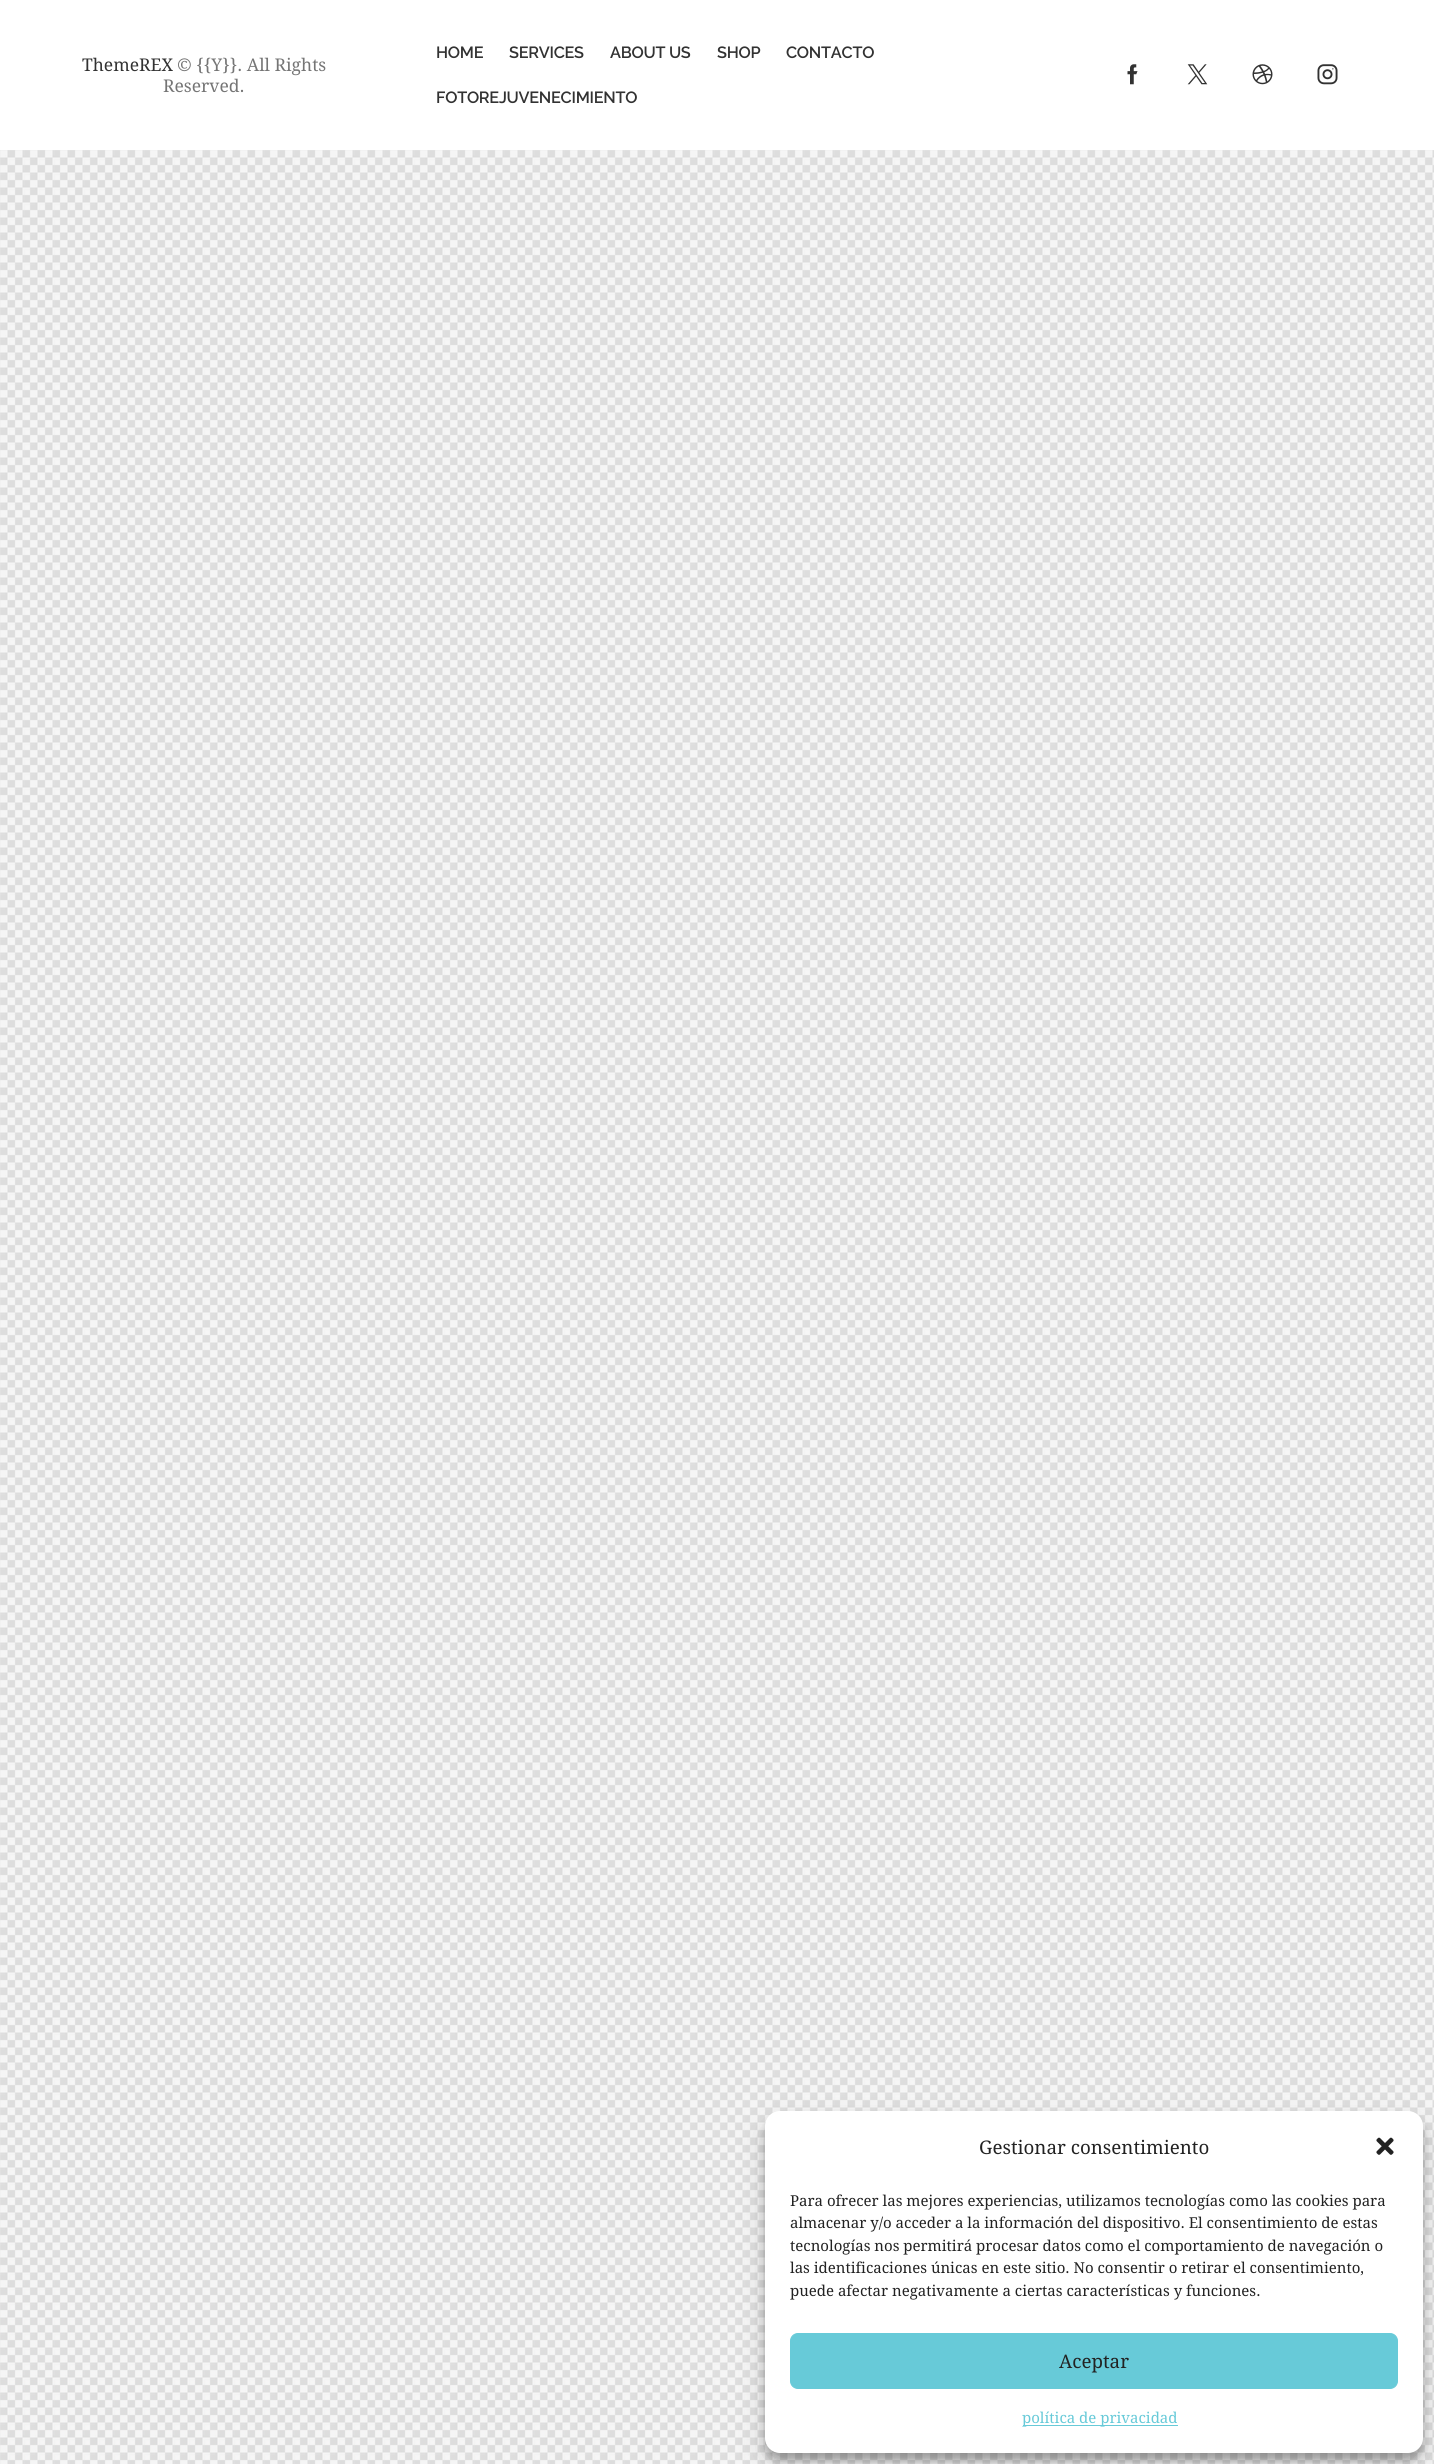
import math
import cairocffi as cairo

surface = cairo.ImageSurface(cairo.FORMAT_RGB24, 1434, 2464)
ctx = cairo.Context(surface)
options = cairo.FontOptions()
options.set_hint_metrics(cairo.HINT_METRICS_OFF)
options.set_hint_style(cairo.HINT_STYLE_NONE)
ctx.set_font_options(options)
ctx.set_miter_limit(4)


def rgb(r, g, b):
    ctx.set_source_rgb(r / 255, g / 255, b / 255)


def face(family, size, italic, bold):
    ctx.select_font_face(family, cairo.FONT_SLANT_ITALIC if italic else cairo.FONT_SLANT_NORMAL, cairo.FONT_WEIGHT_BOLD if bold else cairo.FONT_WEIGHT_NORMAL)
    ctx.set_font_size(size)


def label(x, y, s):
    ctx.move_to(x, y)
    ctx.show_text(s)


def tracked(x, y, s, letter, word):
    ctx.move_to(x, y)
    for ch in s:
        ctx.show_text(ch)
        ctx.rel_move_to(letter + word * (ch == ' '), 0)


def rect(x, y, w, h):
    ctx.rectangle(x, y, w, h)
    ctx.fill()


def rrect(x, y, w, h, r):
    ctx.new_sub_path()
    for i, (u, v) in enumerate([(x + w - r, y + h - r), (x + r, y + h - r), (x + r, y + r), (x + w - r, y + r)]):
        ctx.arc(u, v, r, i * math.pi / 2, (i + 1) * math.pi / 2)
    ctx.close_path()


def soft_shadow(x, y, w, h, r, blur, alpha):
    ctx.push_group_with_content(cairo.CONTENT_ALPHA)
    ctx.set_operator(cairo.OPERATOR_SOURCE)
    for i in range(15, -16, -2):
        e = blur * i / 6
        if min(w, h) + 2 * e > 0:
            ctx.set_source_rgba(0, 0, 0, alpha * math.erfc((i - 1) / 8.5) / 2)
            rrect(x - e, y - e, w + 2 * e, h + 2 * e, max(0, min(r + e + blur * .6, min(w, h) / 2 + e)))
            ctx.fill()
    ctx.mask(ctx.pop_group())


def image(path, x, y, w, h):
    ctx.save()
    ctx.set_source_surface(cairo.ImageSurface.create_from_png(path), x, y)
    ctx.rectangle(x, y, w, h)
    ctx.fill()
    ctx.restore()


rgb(255, 255, 255)
ctx.paint()
image('image0.png', 0, 150, 1434, 2314)
face('Droid Serif', 17.5, 0, 0)
rgb(50, 50, 50)
label(82, 71, 'ThemeREX')
rgb(117, 117, 117)
label(177, 71, '© {{Y}}. All Rights')
label(163, 92, 'Reserved.')
face('Raleway SemiBold', 16.25, 0, 0)
rgb(50, 50, 50)
tracked(436, 58, 'HOME', -0.25, 0)
tracked(509, 58, 'SERVICES', -0.25, 0)
tracked(610, 58, 'ABOUT US', -0.25, 0)
tracked(717, 58, 'SHOP', -0.25, 0)
tracked(786, 58, 'CONTACTO', -0.25, 0)
tracked(436, 103, 'FOTOREJUVENECIMIENTO', -0.25, 0)
image('image1.png', 1127, 64, 11, 21)
image('image2.png', 1187, 64, 21, 21)
image('image3.png', 1252, 64, 21, 21)
image('image4.png', 1317, 64, 21, 21)
rgb(0, 0, 0)
soft_shadow(765, 2119, 658, 341, 15, 4, 0.23)
soft_shadow(765, 2124, 658, 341, 15, 12.5, 0.19)
rgb(255, 255, 255)
rrect(765, 2111, 658, 342, 15)
ctx.fill()
face('Droid Serif', 18.75, 0, 0)
rgb(34, 34, 34)
label(979, 2154, 'Gestionar consentimiento')
image('image5.png', 1376, 2137, 18, 18)
face('Droid Serif', 15, 0, 0)
label(790, 2206, 'Para ofrecer las mejores experiencias, utilizamos tecnologías como las cookies para')
label(790, 2228, 'almacenar y/o acceder a la información del dispositivo. El consentimiento de estas')
label(790, 2251, 'tecnologías nos permitirá procesar datos como el comportamiento de navegación o')
label(790, 2273, 'las identificaciones únicas en este sitio. No consentir o retirar el consentimiento,')
label(790, 2296, 'puede afectar negativamente a ciertas características y funciones.')
rgb(103, 202, 216)
rrect(790.5, 2333.5, 607, 55, 7.5)
ctx.fill_preserve()
ctx.set_line_width(1)
ctx.stroke()
face('Droid Serif', 18.75, 0, 0)
rgb(34, 34, 34)
label(1059, 2368, 'Aceptar')
rgb(103, 202, 216)
rect(1023, 2425, 155, 1)
face('Droid Serif', 15, 0, 0)
label(1022, 2423, 'política de privacidad')
surface.write_to_png('render.png')
